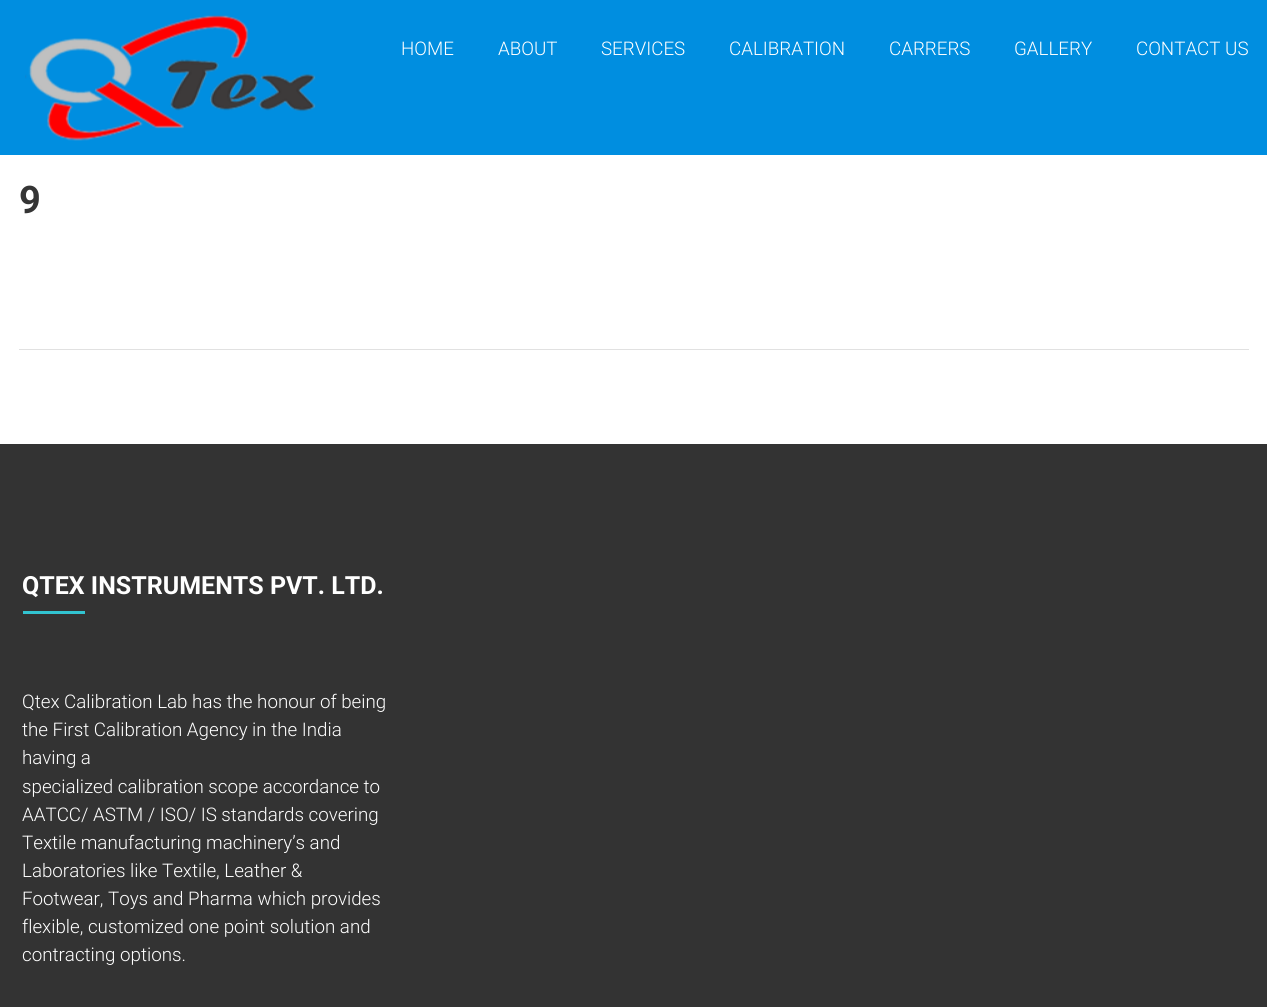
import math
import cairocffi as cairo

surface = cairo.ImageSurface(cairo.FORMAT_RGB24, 1267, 1007)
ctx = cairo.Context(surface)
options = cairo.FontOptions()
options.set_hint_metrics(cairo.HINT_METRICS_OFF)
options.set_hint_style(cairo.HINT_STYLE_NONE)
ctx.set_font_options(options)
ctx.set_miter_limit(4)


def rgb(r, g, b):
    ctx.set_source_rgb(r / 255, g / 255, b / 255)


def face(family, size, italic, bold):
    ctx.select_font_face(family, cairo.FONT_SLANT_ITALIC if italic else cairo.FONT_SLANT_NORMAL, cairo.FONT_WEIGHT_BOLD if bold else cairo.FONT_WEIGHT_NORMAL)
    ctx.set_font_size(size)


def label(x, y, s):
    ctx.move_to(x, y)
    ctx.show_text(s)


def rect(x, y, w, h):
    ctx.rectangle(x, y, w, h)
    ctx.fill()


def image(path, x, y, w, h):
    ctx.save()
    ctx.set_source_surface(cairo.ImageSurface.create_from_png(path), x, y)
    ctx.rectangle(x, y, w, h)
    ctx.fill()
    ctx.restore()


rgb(255, 255, 255)
ctx.paint()
rgb(0, 142, 224)
rect(0, 0, 1267, 155)
image('image0.png', 25, 15, 291, 126)
face('Roboto Light', 18.75, 0, 0)
rgb(255, 255, 255)
label(401, 55, 'HOME')
label(498, 55, 'ABOUT')
label(601, 55, 'SERVICES')
label(729, 55, 'CALIBRATION')
label(889, 55, 'CARRERS')
label(1014, 55, 'GALLERY')
label(1136, 55, 'CONTACT US')
rgb(225, 225, 225)
rect(19, 349, 1230, 1)
face('Roboto', 38, 0, 1)
rgb(53, 53, 53)
label(19, 213, '9')
rgb(51, 51, 51)
rect(0, 444, 1267, 563)
face('Roboto', 25, 0, 1)
rgb(255, 255, 255)
label(22, 594, 'QTEX INSTRUMENTS PVT. LTD.')
rgb(50, 196, 209)
rect(23, 611, 62, 3)
face('Roboto Light', 18.75, 0, 0)
rgb(255, 255, 255)
label(22, 708, 'Qtex Calibration Lab has the honour of being')
label(22, 736, 'the First Calibration Agency in the India')
label(22, 764, 'having a')
label(22, 793, 'specialized calibration scope accordance to')
label(22, 821, 'AATCC/ ASTM / ISO/ IS standards covering')
label(22, 849, 'Textile manufacturing machinery’s and')
label(22, 877, 'Laboratories like Textile, Leather &')
label(22, 905, 'Footwear, Toys and Pharma which provides')
label(22, 933, 'flexible, customized one point solution and')
label(22, 961, 'contracting options.')
surface.write_to_png('render.png')
